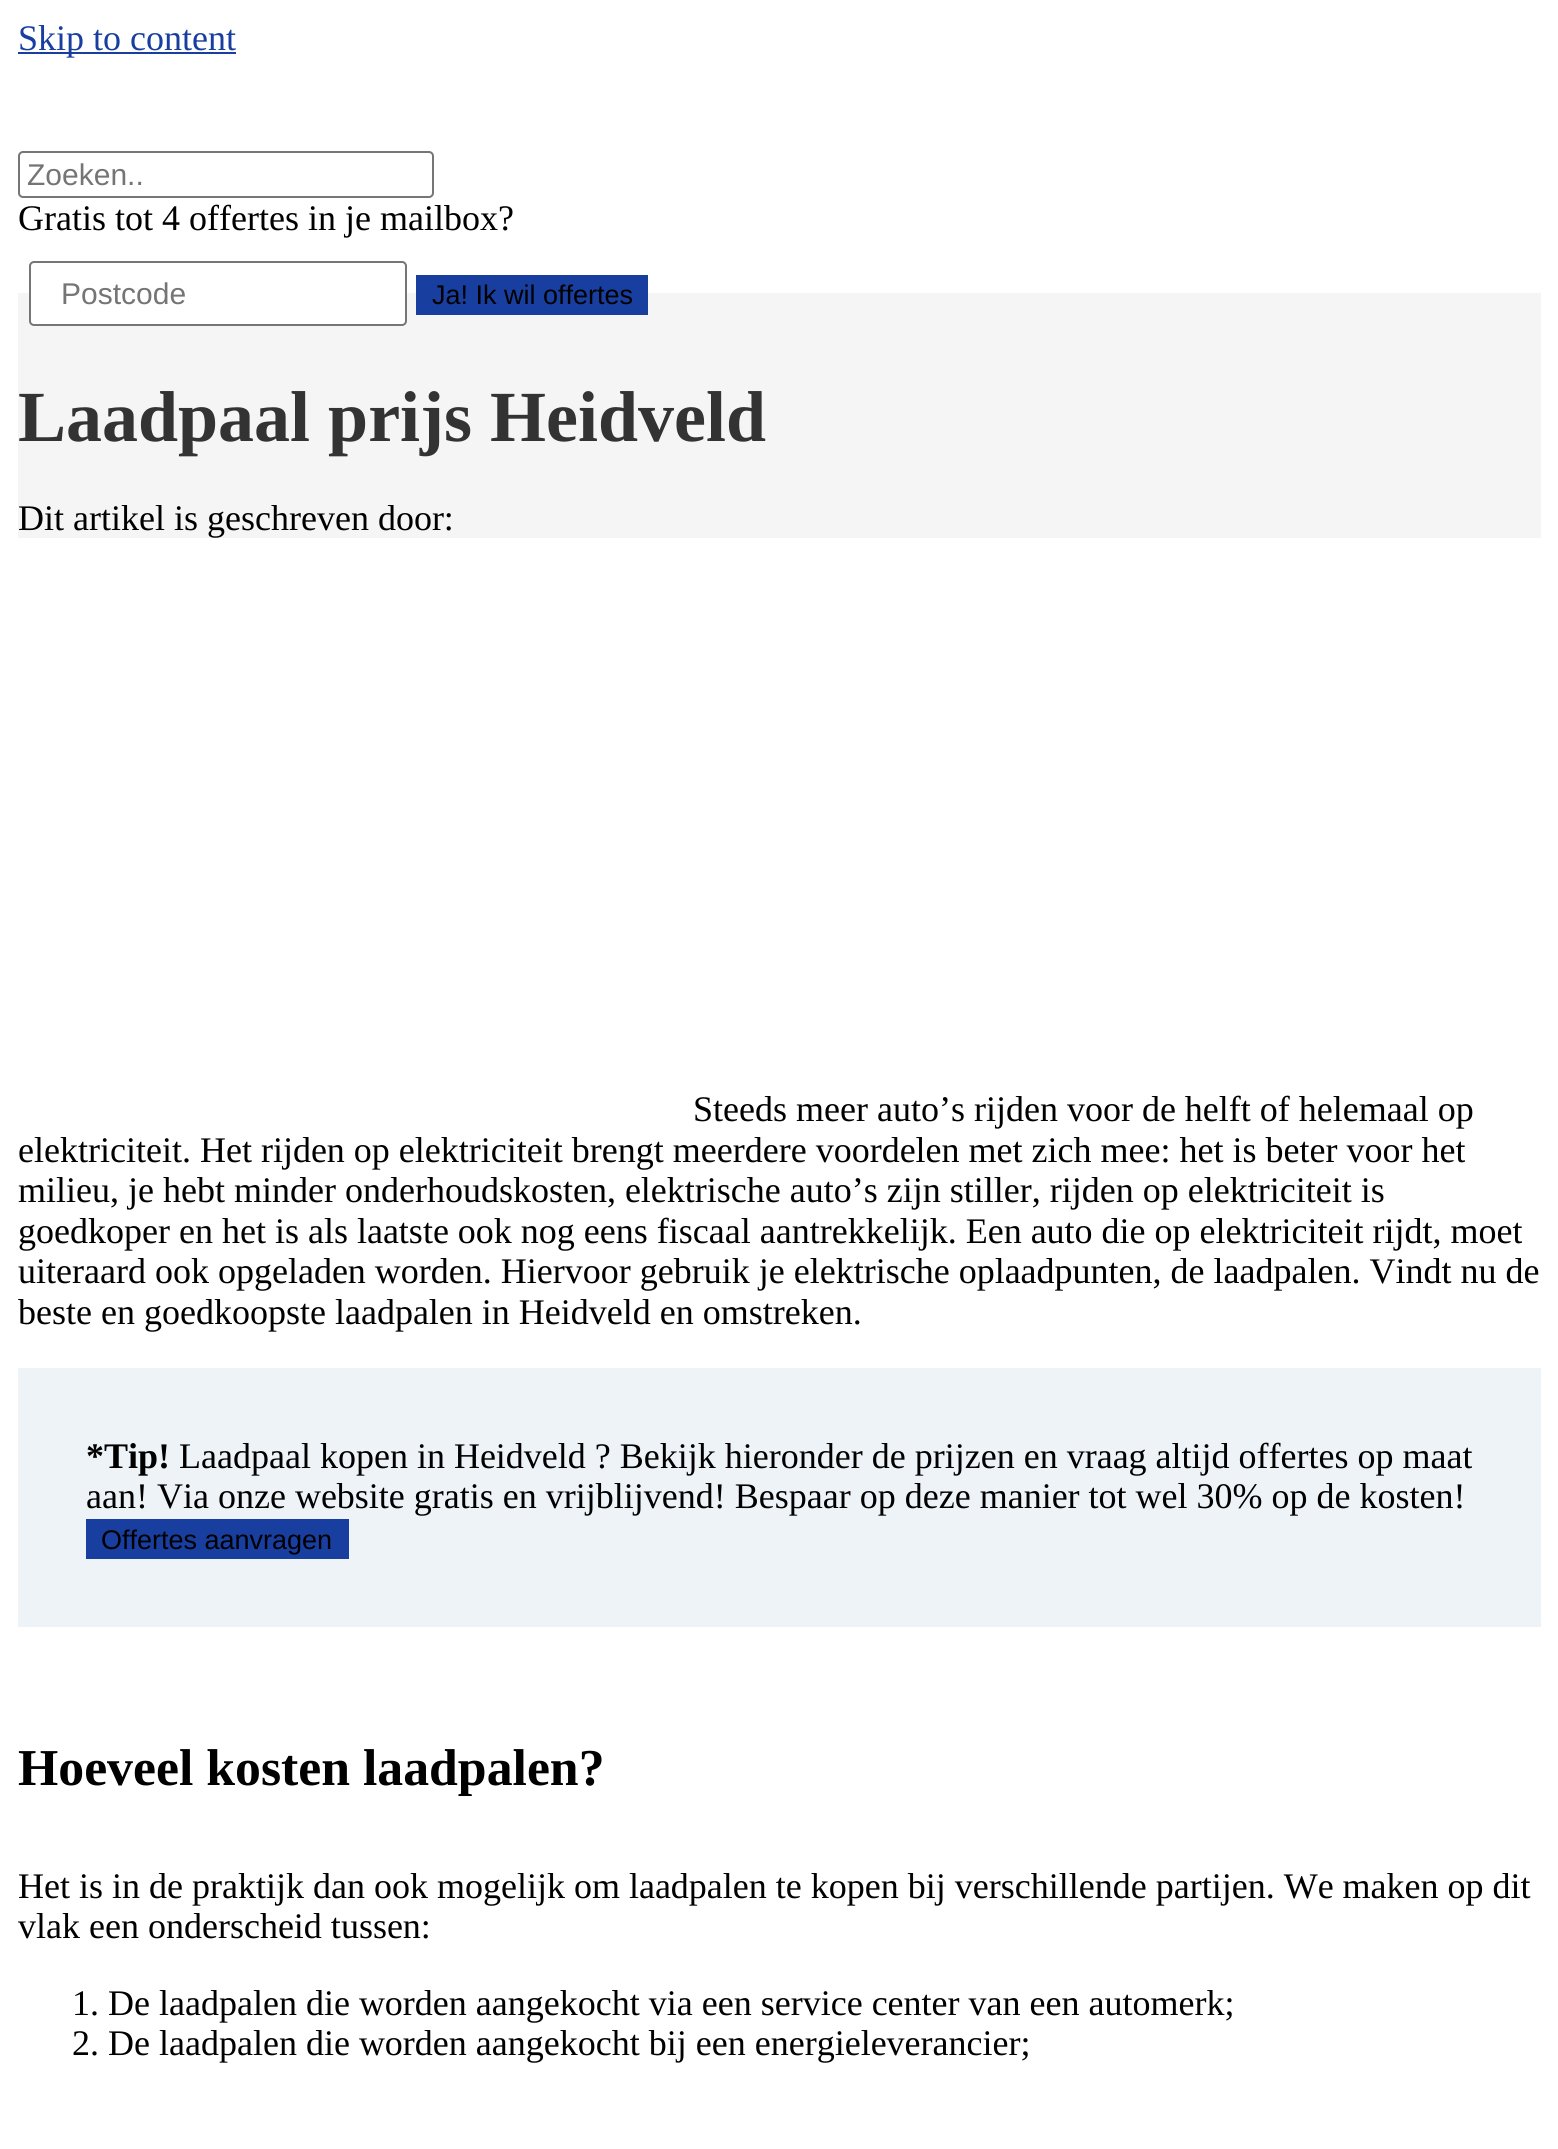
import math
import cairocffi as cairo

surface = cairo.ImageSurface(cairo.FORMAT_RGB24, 1558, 2149)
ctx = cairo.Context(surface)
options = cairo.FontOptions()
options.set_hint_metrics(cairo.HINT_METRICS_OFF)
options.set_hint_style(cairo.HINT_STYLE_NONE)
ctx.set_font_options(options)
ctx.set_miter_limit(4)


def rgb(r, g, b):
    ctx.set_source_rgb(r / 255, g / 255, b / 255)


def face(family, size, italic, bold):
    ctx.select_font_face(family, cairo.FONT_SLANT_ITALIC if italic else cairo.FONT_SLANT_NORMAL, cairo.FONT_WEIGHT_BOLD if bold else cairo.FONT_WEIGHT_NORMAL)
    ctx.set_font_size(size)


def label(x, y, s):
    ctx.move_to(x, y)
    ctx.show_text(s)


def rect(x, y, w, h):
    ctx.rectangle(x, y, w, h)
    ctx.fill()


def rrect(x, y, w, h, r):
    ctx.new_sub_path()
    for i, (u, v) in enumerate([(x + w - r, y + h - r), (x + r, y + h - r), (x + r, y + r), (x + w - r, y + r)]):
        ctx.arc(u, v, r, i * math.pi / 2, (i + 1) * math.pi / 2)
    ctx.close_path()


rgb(255, 255, 255)
ctx.paint()
rgb(24, 62, 160)
rect(18, 52, 218, 2)
face('Liberation Serif', 36, 0, 0)
label(18, 50, 'Skip to content')
rrect(19, 152, 414, 45, 4)
rgb(118, 118, 118)
ctx.stroke()
face('Liberation Sans', 30, 0, 0)
rgb(117, 117, 117)
label(27, 185, 'Zoeken..')
face('Liberation Serif', 36, 0, 0)
rgb(0, 0, 0)
label(18, 230, 'Gratis tot 4 offertes in je mailbox?')
rgb(245, 245, 245)
rect(18, 293, 1523, 245)
rgb(255, 255, 255)
rrect(30, 262, 376, 63, 4)
ctx.fill_preserve()
rgb(118, 118, 118)
ctx.stroke()
face('Liberation Sans', 30, 0, 0)
rgb(117, 117, 117)
label(61, 304, 'Postcode')
rgb(24, 62, 160)
rect(416, 275, 232, 40)
face('Liberation Sans', 27, 0, 0)
rgb(0, 0, 0)
label(432, 304, 'Ja! Ik wil offertes')
face('Liberation Serif', 72, 0, 1)
rgb(51, 51, 51)
label(18, 441, 'Laadpaal prijs Heidveld')
face('Liberation Serif', 36, 0, 0)
rgb(0, 0, 0)
label(18, 530, 'Dit artikel is geschreven door:')
label(693, 1121, 'Steeds meer auto’s rijden voor de helft of helemaal op')
label(18, 1162, 'elektriciteit. Het rijden op elektriciteit brengt meerdere voordelen met zich mee: het is beter voor het')
label(18, 1202, 'milieu, je hebt minder onderhoudskosten, elektrische auto’s zijn stiller, rijden op elektriciteit is')
label(18, 1243, 'goedkoper en het is als laatste ook nog eens fiscaal aantrekkelijk. Een auto die op elektriciteit rijdt, moet')
label(18, 1283, 'uiteraard ook opgeladen worden. Hiervoor gebruik je elektrische oplaadpunten, de laadpalen. Vindt nu de')
label(18, 1324, 'beste en goedkoopste laadpalen in Heidveld en omstreken.')
rgb(238, 243, 247)
rect(18, 1368, 1523, 259)
face('Liberation Serif', 36, 0, 1)
rgb(0, 0, 0)
label(86, 1468, '*Tip!')
face('Liberation Serif', 36, 0, 0)
label(179, 1468, 'Laadpaal kopen in Heidveld ? Bekijk hieronder de prijzen en vraag altijd offertes op maat')
label(86, 1508, 'aan! Via onze website gratis en vrijblijvend! Bespaar op deze manier tot wel 30% op de kosten!')
rgb(24, 62, 160)
rect(86, 1519, 263, 40)
face('Liberation Sans', 27, 0, 0)
rgb(0, 0, 0)
label(101, 1549, 'Offertes aanvragen')
face('Liberation Serif', 51.75, 0, 1)
label(18, 1785, 'Hoeveel kosten laadpalen?')
face('Liberation Serif', 36, 0, 0)
label(18, 1898, 'Het is in de praktijk dan ook mogelijk om laadpalen te kopen bij verschillende partijen. We maken op dit')
label(18, 1938, 'vlak een onderscheid tussen:')
label(72, 2015, '1. De laadpalen die worden aangekocht via een service center van een automerk;')
label(72, 2055, '2. De laadpalen die worden aangekocht bij een energieleverancier;')
surface.write_to_png('render.png')
